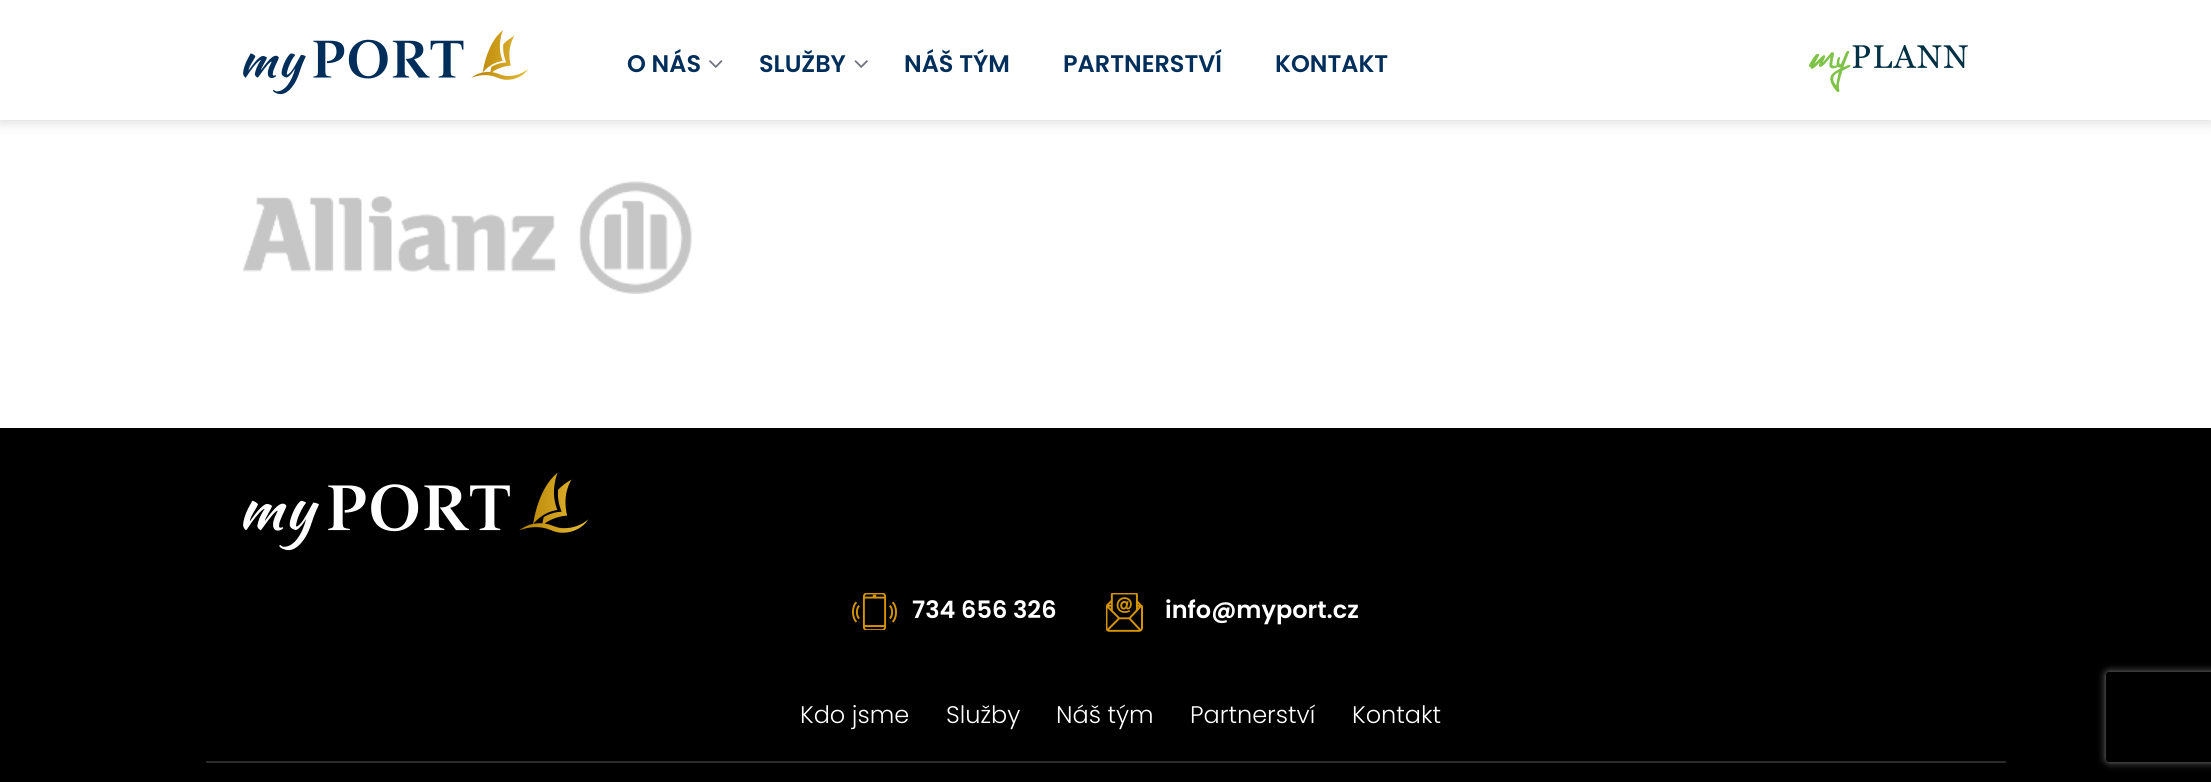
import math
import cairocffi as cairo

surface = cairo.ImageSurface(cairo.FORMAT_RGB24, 2211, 782)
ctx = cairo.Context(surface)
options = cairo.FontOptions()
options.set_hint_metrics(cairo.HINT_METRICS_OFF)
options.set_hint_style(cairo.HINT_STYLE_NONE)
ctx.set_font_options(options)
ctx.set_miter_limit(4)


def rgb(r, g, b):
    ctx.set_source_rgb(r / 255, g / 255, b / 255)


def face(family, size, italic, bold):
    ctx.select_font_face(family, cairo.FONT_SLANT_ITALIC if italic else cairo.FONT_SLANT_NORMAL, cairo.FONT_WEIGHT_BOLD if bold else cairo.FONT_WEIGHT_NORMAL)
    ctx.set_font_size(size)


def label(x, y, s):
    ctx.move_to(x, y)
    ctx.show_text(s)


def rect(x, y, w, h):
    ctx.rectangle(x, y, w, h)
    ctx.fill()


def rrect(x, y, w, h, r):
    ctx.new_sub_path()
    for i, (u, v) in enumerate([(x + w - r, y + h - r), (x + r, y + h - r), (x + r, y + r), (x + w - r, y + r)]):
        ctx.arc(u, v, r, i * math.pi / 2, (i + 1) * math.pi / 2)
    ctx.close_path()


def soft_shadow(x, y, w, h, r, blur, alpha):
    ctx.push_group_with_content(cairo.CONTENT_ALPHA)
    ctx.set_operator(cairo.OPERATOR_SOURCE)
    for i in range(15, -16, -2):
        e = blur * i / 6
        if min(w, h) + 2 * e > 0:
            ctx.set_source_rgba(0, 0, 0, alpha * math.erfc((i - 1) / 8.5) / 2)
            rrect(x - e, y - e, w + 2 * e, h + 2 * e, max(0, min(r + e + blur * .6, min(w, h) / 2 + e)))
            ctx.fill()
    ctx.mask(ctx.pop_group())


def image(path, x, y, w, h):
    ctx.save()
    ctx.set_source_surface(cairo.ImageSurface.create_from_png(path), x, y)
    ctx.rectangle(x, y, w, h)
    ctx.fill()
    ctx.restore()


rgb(255, 255, 255)
ctx.paint()
ctx.save()
ctx.rectangle(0, 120, 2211, 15)
ctx.clip()
rgb(208, 208, 208)
soft_shadow(0, 0, 2211, 120, 0, 7.5, 1)
ctx.restore()
image('image0.png', 243, 30, 285, 65)
face('Poppins SemiBold', 24, 0, 0)
rgb(0, 46, 90)
label(627, 72, 'O NÁS')
image('image1.png', 709, 60, 14, 8)
label(759, 72, 'SLUŽBY')
image('image2.png', 854, 60, 14, 8)
label(904, 72, 'NÁŠ TÝM')
label(1063, 72, 'PARTNERSTVÍ')
label(1275, 72, 'KONTAKT')
image('image3.png', 1809, 45, 159, 48)
image('image4.png', 243, 181, 449, 113)
rgb(0, 0, 0)
rect(0, 428, 2211, 354)
image('image5.png', 243, 473, 345, 78)
image('image6.png', 852, 593, 45, 37)
rgb(255, 255, 255)
label(912, 618, '734 656 326')
image('image7.png', 1106, 593, 37, 39)
label(1165, 618, 'info@myport.cz')
face('Poppins Light', 24, 0, 0)
label(800, 723, 'Kdo jsme')
label(946, 723, 'Služby')
label(1056, 723, 'Náš tým')
label(1190, 723, 'Partnerství')
label(1352, 723, 'Kontakt')
rgb(42, 42, 42)
rect(206, 761, 1800, 2)
ctx.save()
ctx.set_fill_rule(cairo.FILL_RULE_EVEN_ODD)
ctx.new_path()
ctx.move_to(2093, 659)
ctx.line_to(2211, 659)
ctx.line_to(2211, 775)
ctx.line_to(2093, 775)
ctx.close_path()
ctx.move_to(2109, 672)
ctx.line_to(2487, 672)
ctx.curve_to(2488.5, 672, 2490, 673.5, 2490, 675)
ctx.line_to(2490, 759)
ctx.curve_to(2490, 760.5, 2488.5, 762, 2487, 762)
ctx.line_to(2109, 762)
ctx.curve_to(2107.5, 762, 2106, 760.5, 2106, 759)
ctx.line_to(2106, 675)
ctx.curve_to(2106, 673.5, 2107.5, 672, 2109, 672)
ctx.close_path()
ctx.clip()
rgb(128, 128, 128)
soft_shadow(2106, 672, 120, 90, 3, 4, 1)
ctx.restore()
surface.write_to_png('render.png')
